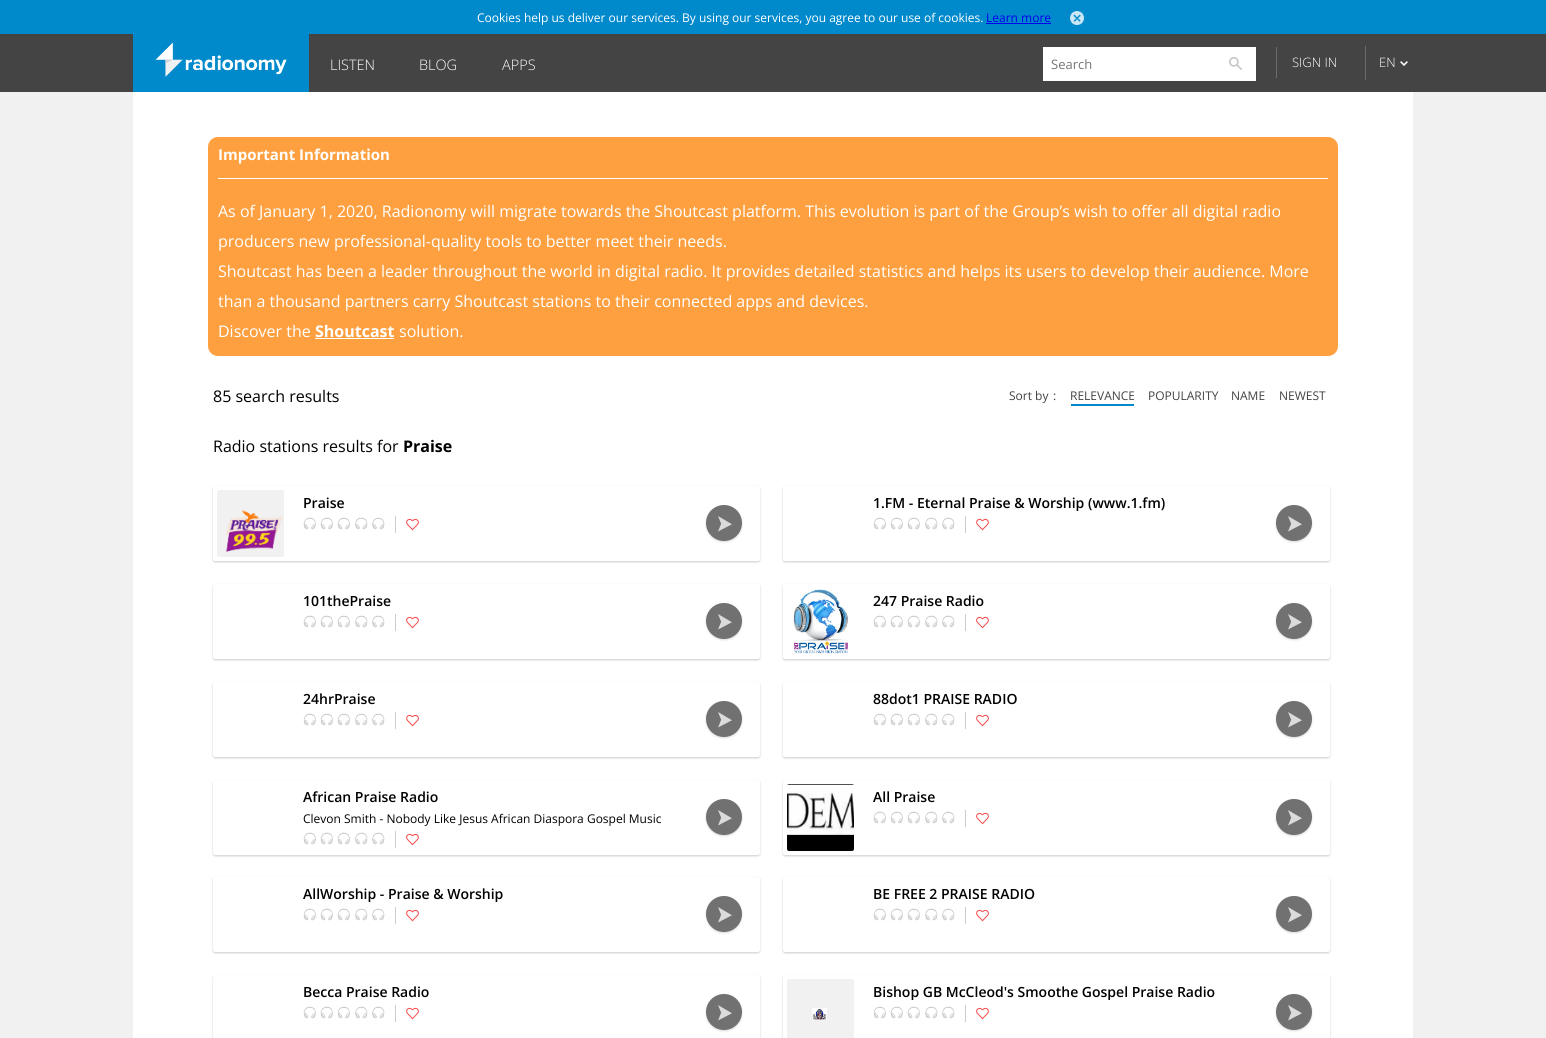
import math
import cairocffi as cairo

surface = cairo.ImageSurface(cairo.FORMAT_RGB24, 1546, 1038)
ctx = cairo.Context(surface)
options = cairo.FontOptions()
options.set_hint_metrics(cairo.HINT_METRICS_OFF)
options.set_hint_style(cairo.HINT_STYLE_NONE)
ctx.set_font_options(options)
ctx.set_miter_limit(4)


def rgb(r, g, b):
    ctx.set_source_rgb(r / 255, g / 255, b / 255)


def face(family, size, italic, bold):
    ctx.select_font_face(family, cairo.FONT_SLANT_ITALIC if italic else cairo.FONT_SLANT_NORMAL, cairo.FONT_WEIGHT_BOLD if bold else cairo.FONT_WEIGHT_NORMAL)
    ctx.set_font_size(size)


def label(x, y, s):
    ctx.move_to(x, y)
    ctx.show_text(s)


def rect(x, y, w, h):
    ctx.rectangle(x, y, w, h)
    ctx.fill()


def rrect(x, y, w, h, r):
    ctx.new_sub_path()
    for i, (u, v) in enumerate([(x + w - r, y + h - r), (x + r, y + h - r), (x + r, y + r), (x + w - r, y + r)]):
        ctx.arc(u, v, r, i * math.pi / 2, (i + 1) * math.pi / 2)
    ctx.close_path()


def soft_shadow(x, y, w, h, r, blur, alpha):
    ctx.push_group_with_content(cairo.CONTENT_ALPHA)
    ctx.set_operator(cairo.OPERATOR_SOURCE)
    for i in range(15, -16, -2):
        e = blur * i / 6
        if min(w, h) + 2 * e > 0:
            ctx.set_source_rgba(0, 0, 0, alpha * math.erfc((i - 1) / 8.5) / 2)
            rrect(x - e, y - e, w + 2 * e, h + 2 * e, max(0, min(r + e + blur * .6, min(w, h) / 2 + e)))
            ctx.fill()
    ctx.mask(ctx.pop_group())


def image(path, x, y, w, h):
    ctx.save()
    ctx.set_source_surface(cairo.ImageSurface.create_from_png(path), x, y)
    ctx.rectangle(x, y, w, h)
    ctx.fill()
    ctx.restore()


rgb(241, 241, 241)
ctx.paint()
rgb(0, 137, 203)
rect(0, 0, 1546, 34)
face('Open Sans', 12, 0, 0)
rgb(255, 255, 255)
label(477, 22, 'Cookies help us deliver our services. By using our services, you agree to our use of cookies.')
rgb(0, 0, 238)
label(986, 22, 'Learn more')
rect(986, 23, 65, 1)
image('image0.png', 1070, 11, 14, 14)
rgb(68, 68, 68)
rect(0, 34, 1546, 58)
rgb(0, 137, 203)
rect(133, 34, 176, 58)
image('image1.png', 155, 42, 132, 35)
face('Open Sans Light', 14.5, 0, 0)
rgb(255, 255, 255)
label(330, 70, 'LISTEN')
label(419, 70, 'BLOG')
label(502, 70, 'APPS')
rect(1043, 47, 213, 34)
face('Open Sans', 13, 0, 0)
rgb(117, 117, 117)
label(1051, 69, 'Search')
image('image2.png', 1229, 57, 13, 16)
rgb(108, 108, 108)
rect(1276, 47, 1, 31)
face('Open Sans Light', 13, 0, 0)
rgb(255, 255, 255)
label(1292, 67, 'SIGN IN')
rgb(108, 108, 108)
rect(1365, 46, 1, 34)
image('image3.png', 1400, 61, 12, 5)
rgb(255, 255, 255)
label(1379, 67, 'EN')
rect(133, 92, 1280, 946)
rgb(255, 160, 64)
rrect(208, 137, 1130, 219, 10)
ctx.fill()
face('Open Sans', 15, 0, 1)
rgb(255, 255, 255)
label(218, 160, 'Important Information')
rect(218, 178, 1110, 1)
face('Open Sans', 16, 0, 0)
label(218, 217, 'As of January 1, 2020, Radionomy will migrate towards the Shoutcast platform. This evolution is part of the Group’s wish to offer all digital radio')
label(218, 247, 'producers new professional-quality tools to better meet their needs.')
label(218, 277, 'Shoutcast has been a leader throughout the world in digital radio. It provides detailed statistics and helps its users to develop their audience. More')
label(218, 307, 'than a thousand partners carry Shoutcast stations to their connected apps and devices.')
label(218, 337, 'Discover the')
face('Open Sans', 16, 0, 1)
label(315, 337, 'Shoutcast')
rect(315, 338, 79, 1)
face('Open Sans', 16, 0, 0)
label(399, 337, 'solution.')
rgb(0, 0, 0)
label(213, 402, '85 search results')
face('Open Sans', 12, 0, 0)
rgb(66, 66, 66)
label(1009, 400, 'Sort by')
label(1053, 400, ':')
label(1070, 400, 'RELEVANCE')
rgb(0, 137, 203)
rect(1071, 404, 63, 2)
rgb(66, 66, 66)
label(1148, 400, 'POPULARITY')
label(1231, 400, 'NAME')
label(1279, 400, 'NEWEST')
face('Open Sans', 16, 0, 0)
rgb(0, 0, 0)
label(213, 452, 'Radio stations results for')
face('Open Sans', 16, 0, 1)
label(403, 452, 'Praise')
rgb(0, 0, 0)
soft_shadow(213, 487, 547, 75, 2, 1, 0.2)
rgb(255, 255, 255)
rrect(213, 486, 547, 75, 2)
ctx.fill()
rgb(241, 241, 241)
rrect(217, 490, 67, 67, 2)
ctx.fill()
image('image4.png', 226, 509, 57, 43)
face('Open Sans SemiBold', 14, 0, 0)
rgb(0, 0, 0)
label(303, 508, 'Praise')
image('image5.png', 303, 517, 82, 13)
rgb(204, 204, 204)
rect(395, 516, 1, 17)
image('image6.png', 406, 518, 13, 13)
rgb(64, 64, 64)
soft_shadow(706, 506, 36, 36, 18, 1, 0.2)
rgb(113, 113, 113)
ctx.arc(724, 523, 18, 0, 2 * math.pi)
ctx.fill()
image('image7.png', 718, 516, 14, 16)
rgb(0, 0, 0)
soft_shadow(783, 487, 547, 75, 2, 1, 0.2)
rgb(255, 255, 255)
rrect(783, 486, 547, 75, 2)
ctx.fill()
ctx.save()
ctx.rectangle(873, 496, 369, 15)
ctx.clip()
rgb(0, 0, 0)
label(873, 508, '1.FM - Eternal Praise & Worship (www.1.fm)')
ctx.restore()
image('image5.png', 873, 517, 82, 13)
rgb(204, 204, 204)
rect(965, 516, 1, 17)
image('image6.png', 976, 518, 13, 13)
rgb(64, 64, 64)
soft_shadow(1276, 506, 36, 36, 18, 1, 0.2)
rgb(113, 113, 113)
ctx.arc(1294, 523, 18, 0, 2 * math.pi)
ctx.fill()
image('image7.png', 1288, 516, 14, 16)
rgb(0, 0, 0)
soft_shadow(213, 585, 547, 75, 2, 1, 0.2)
rgb(255, 255, 255)
rrect(213, 584, 547, 75, 2)
ctx.fill()
rgb(0, 0, 0)
label(303, 606, '101thePraise')
image('image5.png', 303, 615, 82, 13)
rgb(204, 204, 204)
rect(395, 614, 1, 17)
image('image6.png', 406, 616, 13, 13)
rgb(64, 64, 64)
soft_shadow(706, 604, 36, 36, 18, 1, 0.2)
rgb(113, 113, 113)
ctx.arc(724, 621, 18, 0, 2 * math.pi)
ctx.fill()
image('image7.png', 718, 614, 14, 16)
rgb(0, 0, 0)
soft_shadow(783, 585, 547, 75, 2, 1, 0.2)
rgb(255, 255, 255)
rrect(783, 584, 547, 75, 2)
ctx.fill()
image('image8.png', 787, 588, 67, 67)
rgb(0, 0, 0)
label(873, 606, '247 Praise Radio')
image('image5.png', 873, 615, 82, 13)
rgb(204, 204, 204)
rect(965, 614, 1, 17)
image('image6.png', 976, 616, 13, 13)
rgb(64, 64, 64)
soft_shadow(1276, 604, 36, 36, 18, 1, 0.2)
rgb(113, 113, 113)
ctx.arc(1294, 621, 18, 0, 2 * math.pi)
ctx.fill()
image('image7.png', 1288, 614, 14, 16)
rgb(0, 0, 0)
soft_shadow(213, 683, 547, 75, 2, 1, 0.2)
rgb(255, 255, 255)
rrect(213, 682, 547, 75, 2)
ctx.fill()
rgb(0, 0, 0)
label(303, 704, '24hrPraise')
image('image5.png', 303, 713, 82, 13)
rgb(204, 204, 204)
rect(395, 712, 1, 17)
image('image6.png', 406, 714, 13, 13)
rgb(64, 64, 64)
soft_shadow(706, 702, 36, 36, 18, 1, 0.2)
rgb(113, 113, 113)
ctx.arc(724, 719, 18, 0, 2 * math.pi)
ctx.fill()
image('image7.png', 718, 712, 14, 16)
rgb(0, 0, 0)
soft_shadow(783, 683, 547, 75, 2, 1, 0.2)
rgb(255, 255, 255)
rrect(783, 682, 547, 75, 2)
ctx.fill()
rgb(0, 0, 0)
label(873, 704, '88dot1 PRAISE RADIO')
image('image5.png', 873, 713, 82, 13)
rgb(204, 204, 204)
rect(965, 712, 1, 17)
image('image6.png', 976, 714, 13, 13)
rgb(64, 64, 64)
soft_shadow(1276, 702, 36, 36, 18, 1, 0.2)
rgb(113, 113, 113)
ctx.arc(1294, 719, 18, 0, 2 * math.pi)
ctx.fill()
image('image7.png', 1288, 712, 14, 16)
rgb(0, 0, 0)
soft_shadow(213, 781, 547, 75, 2, 1, 0.2)
rgb(255, 255, 255)
rrect(213, 780, 547, 75, 2)
ctx.fill()
rgb(0, 0, 0)
label(303, 802, 'African Praise Radio')
face('Open Sans', 12, 0, 0)
label(303, 823, 'Clevon Smith - Nobody Like Jesus African Diaspora Gospel Music')
image('image5.png', 303, 832, 82, 13)
rgb(204, 204, 204)
rect(395, 831, 1, 17)
image('image6.png', 406, 833, 13, 13)
rgb(64, 64, 64)
soft_shadow(706, 800, 36, 36, 18, 1, 0.2)
rgb(113, 113, 113)
ctx.arc(724, 817, 18, 0, 2 * math.pi)
ctx.fill()
image('image7.png', 718, 810, 14, 16)
rgb(0, 0, 0)
soft_shadow(783, 781, 547, 75, 2, 1, 0.2)
rgb(255, 255, 255)
rrect(783, 780, 547, 75, 2)
ctx.fill()
image('image9.png', 787, 784, 67, 67)
face('Open Sans SemiBold', 14, 0, 0)
rgb(0, 0, 0)
label(873, 802, 'All Praise')
image('image5.png', 873, 811, 82, 13)
rgb(204, 204, 204)
rect(965, 810, 1, 17)
image('image6.png', 976, 812, 13, 13)
rgb(64, 64, 64)
soft_shadow(1276, 800, 36, 36, 18, 1, 0.2)
rgb(113, 113, 113)
ctx.arc(1294, 817, 18, 0, 2 * math.pi)
ctx.fill()
image('image7.png', 1288, 810, 14, 16)
rgb(0, 0, 0)
soft_shadow(213, 878, 547, 75, 2, 1, 0.2)
rgb(255, 255, 255)
rrect(213, 877, 547, 75, 2)
ctx.fill()
ctx.save()
ctx.rectangle(303, 887, 369, 15)
ctx.clip()
rgb(0, 0, 0)
label(303, 899, 'AllWorship - Praise & Worship')
ctx.restore()
image('image5.png', 303, 908, 82, 13)
rgb(204, 204, 204)
rect(395, 907, 1, 17)
image('image6.png', 406, 909, 13, 13)
rgb(64, 64, 64)
soft_shadow(706, 897, 36, 36, 18, 1, 0.2)
rgb(113, 113, 113)
ctx.arc(724, 914, 18, 0, 2 * math.pi)
ctx.fill()
image('image7.png', 718, 907, 14, 16)
rgb(0, 0, 0)
soft_shadow(783, 878, 547, 75, 2, 1, 0.2)
rgb(255, 255, 255)
rrect(783, 877, 547, 75, 2)
ctx.fill()
rgb(0, 0, 0)
label(873, 899, 'BE FREE 2 PRAISE RADIO')
image('image5.png', 873, 908, 82, 13)
rgb(204, 204, 204)
rect(965, 907, 1, 17)
image('image6.png', 976, 909, 13, 13)
rgb(64, 64, 64)
soft_shadow(1276, 897, 36, 36, 18, 1, 0.2)
rgb(113, 113, 113)
ctx.arc(1294, 914, 18, 0, 2 * math.pi)
ctx.fill()
image('image7.png', 1288, 907, 14, 16)
rgb(0, 0, 0)
soft_shadow(213, 976, 547, 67, 2, 1, 0.2)
rgb(255, 255, 255)
rrect(213, 975, 547, 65, 2)
ctx.fill()
rgb(0, 0, 0)
label(303, 997, 'Becca Praise Radio')
image('image5.png', 303, 1006, 82, 13)
rgb(204, 204, 204)
rect(395, 1005, 1, 17)
image('image6.png', 406, 1007, 13, 13)
rgb(64, 64, 64)
soft_shadow(706, 995, 36, 36, 18, 1, 0.2)
rgb(113, 113, 113)
ctx.arc(724, 1012, 18, 0, 2 * math.pi)
ctx.fill()
image('image7.png', 718, 1005, 14, 16)
rgb(0, 0, 0)
soft_shadow(783, 976, 547, 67, 2, 1, 0.2)
rgb(255, 255, 255)
rrect(783, 975, 547, 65, 2)
ctx.fill()
rgb(241, 241, 241)
rrect(787, 979, 67, 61, 2)
ctx.fill()
image('image10.png', 812, 1008, 15, 12)
ctx.save()
ctx.rectangle(873, 985, 369, 15)
ctx.clip()
rgb(0, 0, 0)
label(873, 997, 'Bishop GB McCleod\'s Smoothe Gospel Praise Radio')
ctx.restore()
image('image5.png', 873, 1006, 82, 13)
rgb(204, 204, 204)
rect(965, 1005, 1, 17)
image('image6.png', 976, 1007, 13, 13)
rgb(64, 64, 64)
soft_shadow(1276, 995, 36, 36, 18, 1, 0.2)
rgb(113, 113, 113)
ctx.arc(1294, 1012, 18, 0, 2 * math.pi)
ctx.fill()
image('image7.png', 1288, 1005, 14, 16)
surface.write_to_png('render.png')
